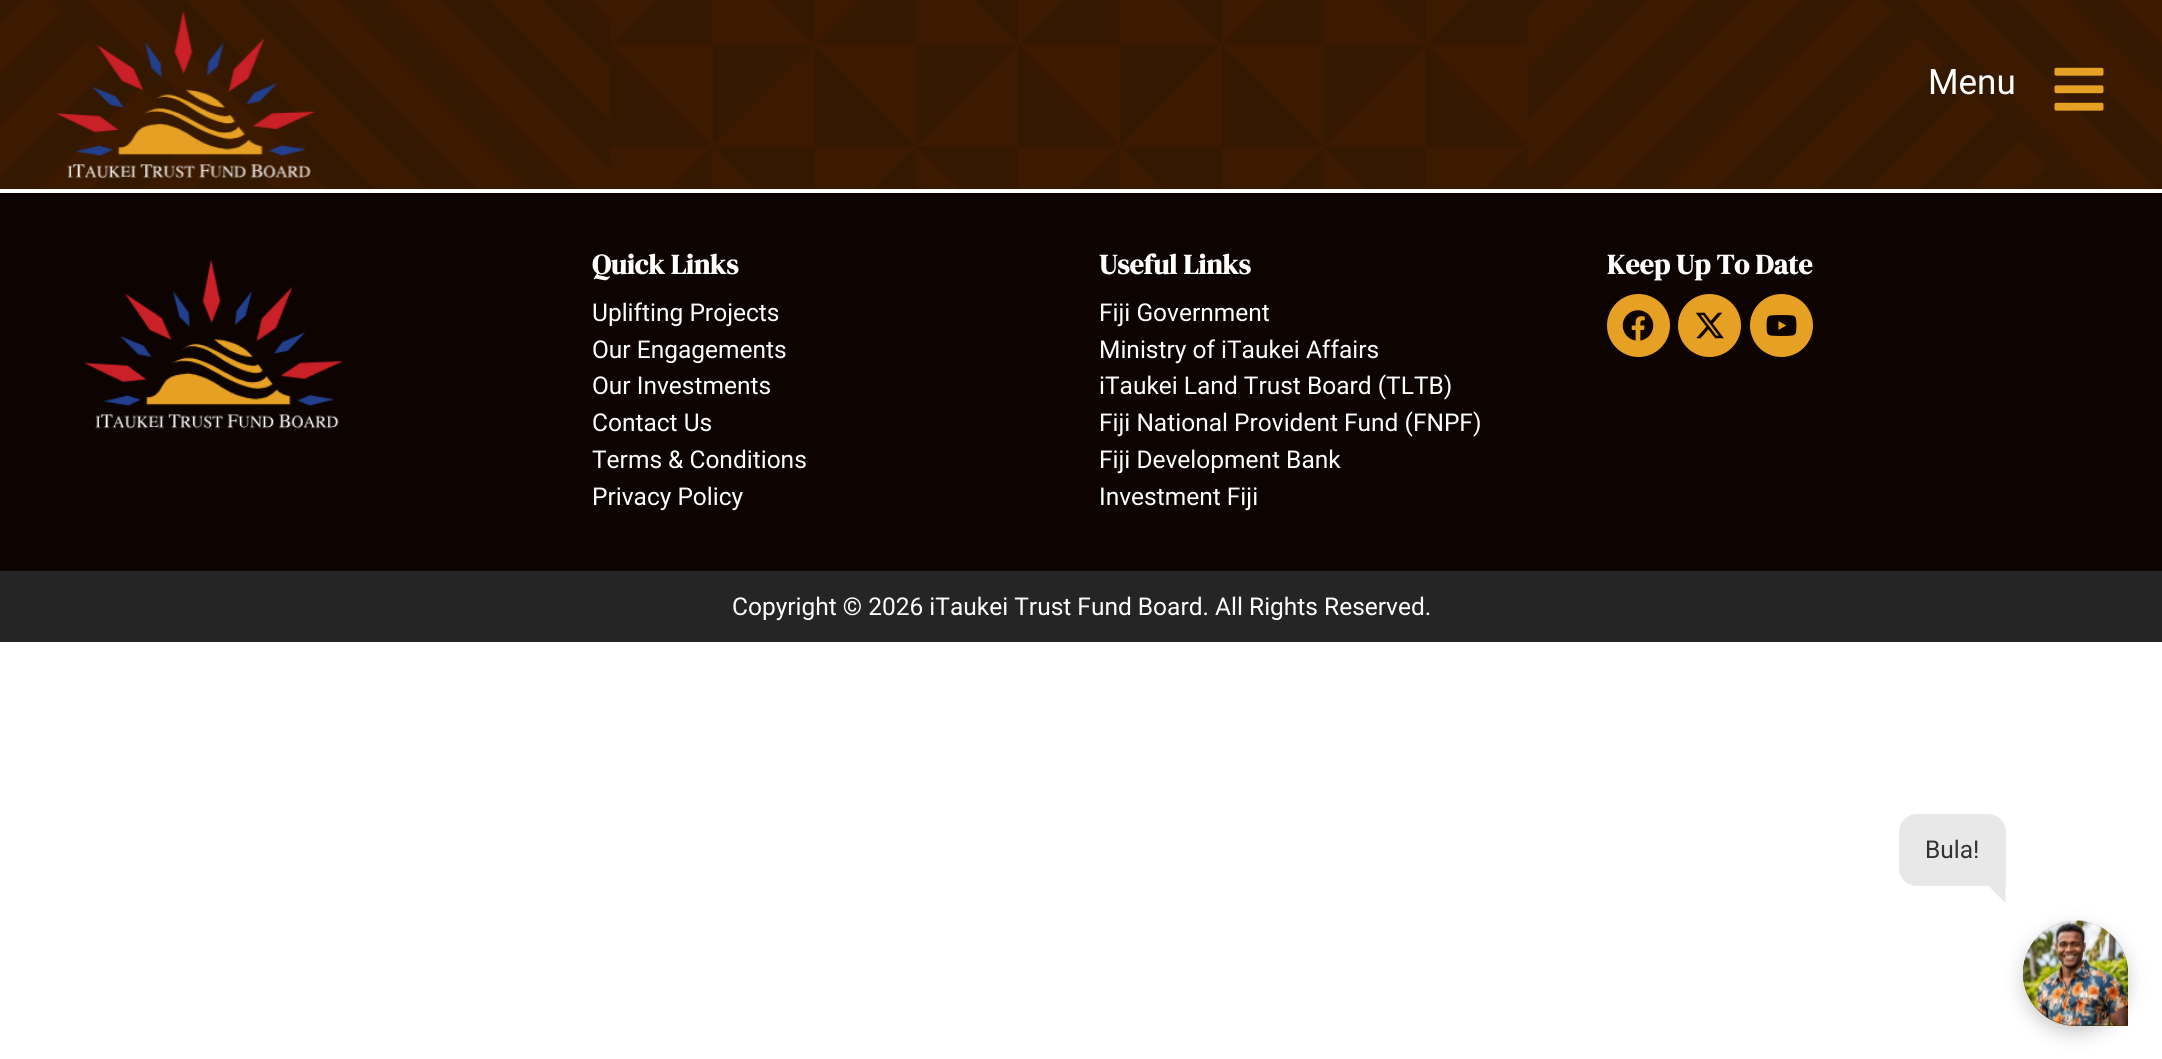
import math
import cairocffi as cairo

surface = cairo.ImageSurface(cairo.FORMAT_RGB24, 2162, 1059)
ctx = cairo.Context(surface)
options = cairo.FontOptions()
options.set_hint_metrics(cairo.HINT_METRICS_OFF)
options.set_hint_style(cairo.HINT_STYLE_NONE)
ctx.set_font_options(options)
ctx.set_miter_limit(4)


def rgb(r, g, b):
    ctx.set_source_rgb(r / 255, g / 255, b / 255)


def face(family, size, italic, bold):
    ctx.select_font_face(family, cairo.FONT_SLANT_ITALIC if italic else cairo.FONT_SLANT_NORMAL, cairo.FONT_WEIGHT_BOLD if bold else cairo.FONT_WEIGHT_NORMAL)
    ctx.set_font_size(size)


def label(x, y, s):
    ctx.move_to(x, y)
    ctx.show_text(s)


def rect(x, y, w, h):
    ctx.rectangle(x, y, w, h)
    ctx.fill()


def rrect(x, y, w, h, r):
    ctx.new_sub_path()
    for i, (u, v) in enumerate([(x + w - r, y + h - r), (x + r, y + h - r), (x + r, y + r), (x + w - r, y + r)]):
        ctx.arc(u, v, r, i * math.pi / 2, (i + 1) * math.pi / 2)
    ctx.close_path()


def soft_shadow(x, y, w, h, r, blur, alpha):
    ctx.push_group_with_content(cairo.CONTENT_ALPHA)
    ctx.set_operator(cairo.OPERATOR_SOURCE)
    for i in range(15, -16, -2):
        e = blur * i / 6
        if min(w, h) + 2 * e > 0:
            ctx.set_source_rgba(0, 0, 0, alpha * math.erfc((i - 1) / 8.5) / 2)
            rrect(x - e, y - e, w + 2 * e, h + 2 * e, max(0, min(r + e + blur * .6, min(w, h) / 2 + e)))
            ctx.fill()
    ctx.mask(ctx.pop_group())


def image(path, x, y, w, h):
    ctx.save()
    ctx.set_source_surface(cairo.ImageSurface.create_from_png(path), x, y)
    ctx.rectangle(x, y, w, h)
    ctx.fill()
    ctx.restore()


rgb(255, 255, 255)
ctx.paint()
rgb(53, 24, 0)
rect(0, 0, 2162, 189)
image('image0.png', 0, 0, 2162, 189)
image('image1.png', 56, 11, 259, 168)
face('Roboto', 35, 0, 0)
rgb(255, 255, 255)
label(1928, 94, 'Menu')
image('image2.png', 2054, 67, 50, 44)
rgb(13, 4, 2)
rect(0, 193, 2162, 378)
image('image3.png', 84, 259, 259, 170)
face('DM Serif Display', 28, 0, 1)
rgb(255, 255, 255)
label(592, 274, 'Quick Links')
face('Roboto', 24.5, 0, 0)
label(592, 321, 'Uplifting Projects')
label(592, 358, 'Our Engagements')
label(592, 394, 'Our Investments')
label(592, 431, 'Contact Us')
label(592, 468, 'Terms & Conditions')
label(592, 505, 'Privacy Policy')
face('DM Serif Display', 28, 0, 1)
label(1099, 274, 'Useful Links')
face('Roboto', 24.5, 0, 0)
label(1099, 321, 'Fiji Government')
label(1099, 358, 'Ministry of iTaukei Affairs')
label(1099, 394, 'iTaukei Land Trust Board (TLTB)')
label(1099, 431, 'Fiji National Provident Fund (FNPF)')
label(1099, 468, 'Fiji Development Bank')
label(1099, 505, 'Investment Fiji')
face('DM Serif Display', 28, 0, 1)
label(1607, 274, 'Keep Up To Date')
rgb(230, 160, 36)
ctx.new_path()
ctx.arc(1638.5, 325.5, 31.5, 0, 2 * math.pi)
ctx.fill()
image('image4.png', 1622, 310, 32, 31)
ctx.arc(1709.5, 325.5, 31.5, 0, 2 * math.pi)
ctx.fill()
image('image5.png', 1695, 312, 29, 27)
ctx.arc(1781.5, 325.5, 31.5, 0, 2 * math.pi)
ctx.fill()
image('image6.png', 1766, 315, 31, 21)
rgb(37, 37, 37)
rect(0, 571, 2162, 71)
face('Roboto', 24.5, 0, 0)
rgb(255, 255, 255)
label(732, 615, 'Copyright © 2026 iTaukei Trust Fund Board. All Rights Reserved.')
rgb(232, 232, 232)
ctx.new_path()
ctx.move_to(1917, 814)
ctx.line_to(1988, 814)
ctx.curve_to(1998, 814, 2006, 822, 2006, 832)
ctx.line_to(2006, 886)
ctx.line_to(1917, 886)
ctx.curve_to(1907, 886, 1899, 878, 1899, 868)
ctx.line_to(1899, 832)
ctx.curve_to(1899, 822, 1907, 814, 1917, 814)
ctx.close_path()
ctx.fill()
rgb(51, 51, 51)
label(1925, 858, 'Bula!')
rgb(0, 0, 0)
soft_shadow(2023, 928, 105, 105, 52.5, 9, 0.2)
rgb(232, 232, 232)
ctx.new_path()
ctx.move_to(1988, 885.5)
ctx.line_to(2005.5, 885.5)
ctx.line_to(2005.5, 903)
ctx.close_path()
ctx.fill()
rgb(82, 48, 0)
ctx.new_path()
ctx.move_to(2075.5, 921)
ctx.curve_to(2104.5, 921, 2128, 944.5, 2128, 973.5)
ctx.line_to(2128, 1026)
ctx.line_to(2075.5, 1026)
ctx.curve_to(2046.5, 1026, 2023, 1002.5, 2023, 973.5)
ctx.curve_to(2023, 944.5, 2046.5, 921, 2075.5, 921)
ctx.close_path()
ctx.fill()
image('image7.png', 2023, 920, 105, 106)
surface.write_to_png('render.png')
